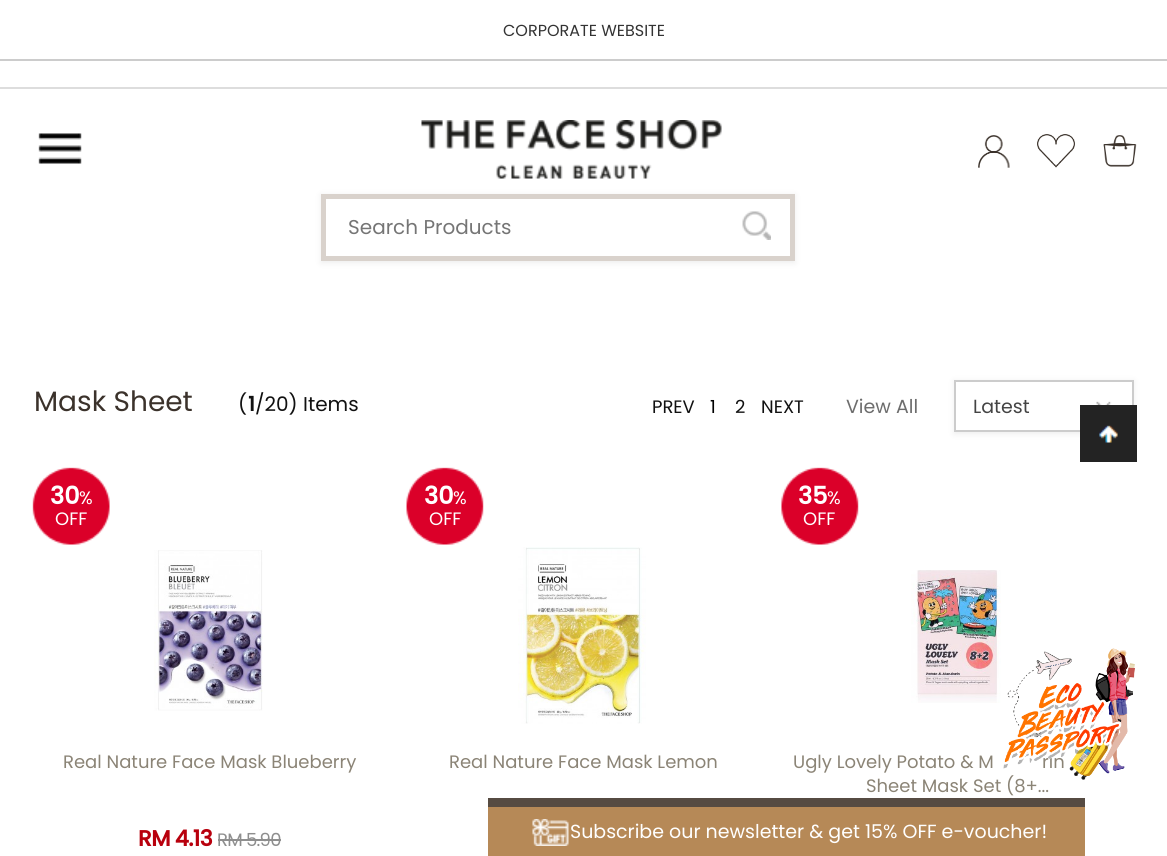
import math
import cairocffi as cairo

surface = cairo.ImageSurface(cairo.FORMAT_RGB24, 1167, 856)
ctx = cairo.Context(surface)
options = cairo.FontOptions()
options.set_hint_metrics(cairo.HINT_METRICS_OFF)
options.set_hint_style(cairo.HINT_STYLE_NONE)
ctx.set_font_options(options)
ctx.set_miter_limit(4)


def rgb(r, g, b):
    ctx.set_source_rgb(r / 255, g / 255, b / 255)


def face(family, size, italic, bold):
    ctx.select_font_face(family, cairo.FONT_SLANT_ITALIC if italic else cairo.FONT_SLANT_NORMAL, cairo.FONT_WEIGHT_BOLD if bold else cairo.FONT_WEIGHT_NORMAL)
    ctx.set_font_size(size)


def label(x, y, s):
    ctx.move_to(x, y)
    ctx.show_text(s)


def tracked(x, y, s, letter, word):
    ctx.move_to(x, y)
    for ch in s:
        ctx.show_text(ch)
        ctx.rel_move_to(letter + word * (ch == ' '), 0)


def rect(x, y, w, h):
    ctx.rectangle(x, y, w, h)
    ctx.fill()


def rrect(x, y, w, h, r):
    ctx.new_sub_path()
    for i, (u, v) in enumerate([(x + w - r, y + h - r), (x + r, y + h - r), (x + r, y + r), (x + w - r, y + r)]):
        ctx.arc(u, v, r, i * math.pi / 2, (i + 1) * math.pi / 2)
    ctx.close_path()


def soft_shadow(x, y, w, h, r, blur, alpha):
    ctx.push_group_with_content(cairo.CONTENT_ALPHA)
    ctx.set_operator(cairo.OPERATOR_SOURCE)
    for i in range(15, -16, -2):
        e = blur * i / 6
        if min(w, h) + 2 * e > 0:
            ctx.set_source_rgba(0, 0, 0, alpha * math.erfc((i - 1) / 8.5) / 2)
            rrect(x - e, y - e, w + 2 * e, h + 2 * e, max(0, min(r + e + blur * .6, min(w, h) / 2 + e)))
            ctx.fill()
    ctx.mask(ctx.pop_group())


def image(path, x, y, w, h):
    ctx.save()
    ctx.set_source_surface(cairo.ImageSurface.create_from_png(path), x, y)
    ctx.rectangle(x, y, w, h)
    ctx.fill()
    ctx.restore()


rgb(255, 255, 255)
ctx.paint()
rgb(221, 221, 221)
rect(0, 87, 1167, 2)
face('Poppins', 16, 0, 0)
rgb(51, 51, 51)
label(503, 36, 'CORPORATE WEBSITE')
rgb(204, 204, 204)
rect(0, 59, 1167, 2)
image('image0.png', 38, 133, 44, 31)
image('image1.png', 421, 120, 301, 59)
image('image2.png', 978, 135, 32, 33)
image('image3.png', 1037, 134, 38, 34)
image('image4.png', 1103, 135, 34, 32)
ctx.save()
ctx.set_fill_rule(cairo.FILL_RULE_EVEN_ODD)
ctx.new_path()
ctx.move_to(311, 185)
ctx.line_to(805, 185)
ctx.line_to(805, 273)
ctx.line_to(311, 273)
ctx.close_path()
ctx.move_to(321, 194)
ctx.line_to(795, 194)
ctx.line_to(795, 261)
ctx.line_to(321, 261)
ctx.close_path()
ctx.clip()
rgb(238, 238, 238)
soft_shadow(321, 195, 474, 68, 0, 3, 1)
ctx.restore()
ctx.rectangle(323.5, 196.5, 469, 62)
rgb(217, 210, 204)
ctx.set_line_width(5)
ctx.stroke()
face('Poppins', 20, 0, 0)
rgb(117, 117, 117)
label(348, 234, 'Search Products')
image('image5.png', 742, 211, 29, 29)
face('Poppins', 28, 0, 0)
rgb(59, 50, 43)
label(34, 411, 'Mask Sheet')
face('Poppins', 20, 0, 0)
rgb(17, 17, 17)
label(238, 411, '(')
face('Poppins', 20, 0, 1)
label(248, 411, '1')
face('Poppins', 20, 0, 0)
label(255, 411, '/20) Items')
face('Poppins', 18, 0, 0)
label(652, 413, 'PREV')
rgb(0, 0, 0)
label(710, 413, '1')
rgb(17, 17, 17)
label(735, 413, '2')
label(761, 413, 'NEXT')
face('Poppins', 19, 0, 0)
rgb(109, 109, 109)
label(846, 413, 'View All')
ctx.save()
ctx.set_fill_rule(cairo.FILL_RULE_EVEN_ODD)
ctx.new_path()
ctx.move_to(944, 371)
ctx.line_to(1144, 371)
ctx.line_to(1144, 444)
ctx.line_to(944, 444)
ctx.close_path()
ctx.move_to(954, 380)
ctx.line_to(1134, 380)
ctx.line_to(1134, 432)
ctx.line_to(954, 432)
ctx.close_path()
ctx.clip()
rgb(238, 238, 238)
soft_shadow(954, 381, 180, 53, 0, 3, 1)
ctx.restore()
image('image6.png', 1096, 401, 16, 4)
ctx.rectangle(955, 381, 178, 50)
rgb(204, 204, 204)
ctx.set_line_width(2)
ctx.stroke()
rgb(68, 68, 68)
label(973, 413, 'Latest')
image('image7.png', 32, 467, 78, 78)
face('Poppins', 24, 0, 1)
rgb(255, 255, 255)
label(50, 504, '30')
face('Poppins', 18, 0, 0)
label(79, 504, '%')
label(55, 525, 'OFF')
image('image8.png', 154, 550, 109, 161)
rgb(139, 132, 118)
label(63, 768, 'Real Nature Face Mask Blueberry')
face('Poppins', 22, 0, 1)
rgb(184, 0, 13)
tracked(138, 846, 'RM 4.13', -0.75, 0)
face('Poppins', 18, 0, 0)
rgb(142, 142, 142)
tracked(217, 846, 'RM 5.90', -0.75, 0)
rect(218, 839, 63, 2)
image('image9.png', 406, 467, 78, 78)
face('Poppins', 24, 0, 1)
rgb(255, 255, 255)
label(424, 504, '30')
face('Poppins', 18, 0, 0)
label(453, 504, '%')
label(429, 525, 'OFF')
image('image10.png', 518, 547, 128, 177)
rgb(139, 132, 118)
label(449, 768, 'Real Nature Face Mask Lemon')
image('image11.png', 781, 467, 78, 78)
face('Poppins', 24, 0, 1)
rgb(255, 255, 255)
label(798, 504, '35')
face('Poppins', 18, 0, 0)
label(827, 504, '%')
label(803, 525, 'OFF')
image('image12.png', 911, 570, 90, 133)
rgb(139, 132, 118)
label(793, 768, 'Ugly Lovely Potato & M')
label(1042, 768, 'rin')
label(866, 792, 'Sheet Mask Set (8+...')
image('image13.png', 1080, 405, 57, 57)
image('image14.png', 1002, 648, 133, 132)
rgb(182, 137, 87)
rect(488, 807, 597, 49)
image('image15.png', 532, 819, 37, 27)
rgb(86, 75, 66)
rect(488, 798, 597, 9)
face('Poppins', 19, 0, 0)
rgb(255, 255, 255)
label(570, 838, 'Subscribe our newsletter & get 15% OFF e-voucher!')
surface.write_to_png('render.png')
